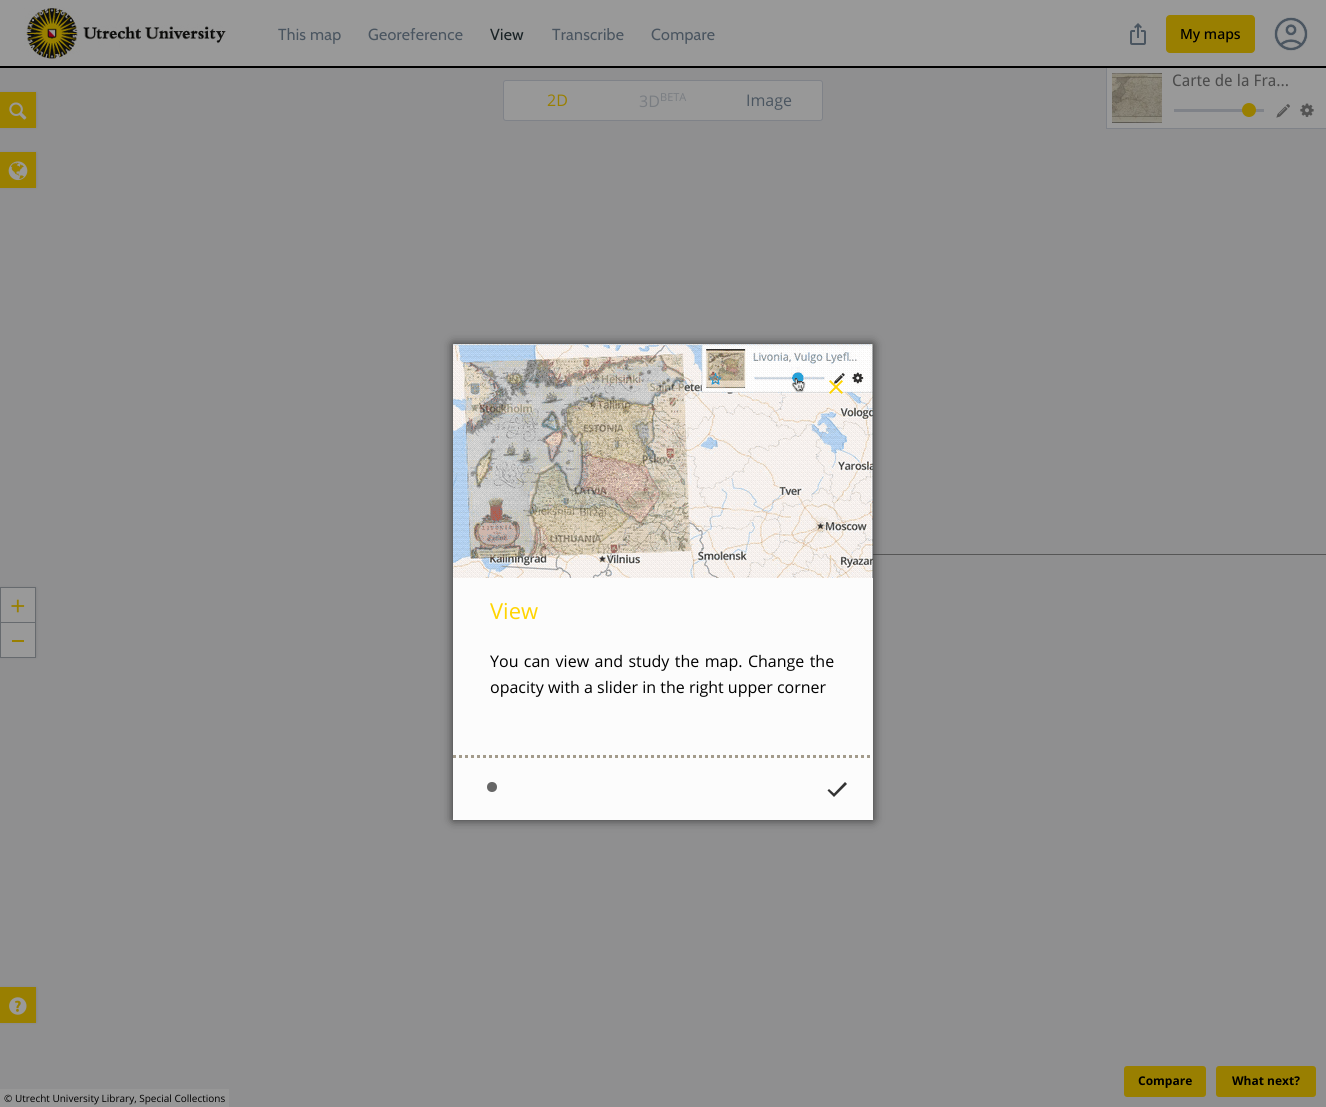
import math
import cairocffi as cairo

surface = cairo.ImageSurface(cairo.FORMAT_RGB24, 1326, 1107)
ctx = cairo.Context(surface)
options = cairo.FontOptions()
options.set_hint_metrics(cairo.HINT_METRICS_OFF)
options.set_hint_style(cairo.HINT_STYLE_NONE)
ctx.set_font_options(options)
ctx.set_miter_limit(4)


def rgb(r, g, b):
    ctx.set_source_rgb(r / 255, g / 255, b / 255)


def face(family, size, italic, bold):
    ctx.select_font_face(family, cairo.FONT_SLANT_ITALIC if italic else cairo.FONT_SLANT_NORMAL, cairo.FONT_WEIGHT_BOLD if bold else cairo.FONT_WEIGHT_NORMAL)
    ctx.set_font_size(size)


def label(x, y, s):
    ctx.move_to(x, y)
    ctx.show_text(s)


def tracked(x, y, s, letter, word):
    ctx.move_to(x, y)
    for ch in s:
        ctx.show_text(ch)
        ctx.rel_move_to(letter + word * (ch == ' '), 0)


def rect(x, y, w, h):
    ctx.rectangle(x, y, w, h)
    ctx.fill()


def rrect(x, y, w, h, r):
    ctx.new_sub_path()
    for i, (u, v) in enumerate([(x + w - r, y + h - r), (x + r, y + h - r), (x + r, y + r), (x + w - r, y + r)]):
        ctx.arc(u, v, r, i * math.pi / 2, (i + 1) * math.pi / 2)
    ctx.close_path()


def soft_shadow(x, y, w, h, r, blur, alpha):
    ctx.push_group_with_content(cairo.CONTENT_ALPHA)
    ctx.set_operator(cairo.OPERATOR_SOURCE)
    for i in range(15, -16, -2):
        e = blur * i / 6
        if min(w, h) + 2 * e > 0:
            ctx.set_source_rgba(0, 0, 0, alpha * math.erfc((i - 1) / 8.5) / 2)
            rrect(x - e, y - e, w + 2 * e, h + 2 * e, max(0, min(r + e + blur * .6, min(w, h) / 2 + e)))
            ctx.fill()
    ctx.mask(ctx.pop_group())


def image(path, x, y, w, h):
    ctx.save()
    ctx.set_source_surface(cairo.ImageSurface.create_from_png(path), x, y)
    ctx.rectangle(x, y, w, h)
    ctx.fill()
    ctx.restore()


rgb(143, 143, 144)
ctx.paint()
rgb(153, 153, 153)
rect(0, 0, 1326, 66)
rgb(0, 0, 0)
rect(0, 66, 1326, 2)
image('image0.png', 24, 6, 202, 53)
face('Cabin', 16, 0, 0)
rgb(74, 85, 96)
tracked(278, 40, 'This map', 0.25, 0)
tracked(368, 40, 'Georeference', 0.25, 0)
rgb(26, 35, 38)
tracked(490, 40, 'View', 0.25, 0)
rgb(74, 85, 96)
tracked(552, 40, 'Transcribe', 0.25, 0)
tracked(651, 40, 'Compare', 0.25, 0)
image('image1.png', 1130, 23, 16, 22)
rgb(153, 127, 1)
rrect(1166, 15, 89, 38, 4)
ctx.fill()
face('Noto Sans Medium', 14, 0, 0)
rgb(0, 0, 0)
label(1180, 39, 'My maps')
image('image2.png', 1274, 17, 34, 34)
rgb(153, 153, 153)
rect(1107, 68, 219, 60)
rgb(127, 130, 136)
rect(1106, 128, 220, 1)
rect(1106, 68, 1, 61)
image('image3.png', 1112, 73, 50, 50)
face('Droid Sans', 16, 0, 0)
rgb(75, 75, 75)
label(1172, 86, 'Carte de la Fra...')
rgb(127, 130, 136)
rect(1174, 109, 90, 3)
rgb(153, 127, 1)
ctx.new_path()
ctx.arc(1249, 110, 7, 0, 2 * math.pi)
ctx.fill()
image('image4.png', 1276, 104, 14, 14)
image('image5.png', 1300, 103, 14, 14)
ctx.set_source_rgba(0.6, 0.6, 0.6, 0.9)
rrect(503.5, 80.5, 319, 40, 2.5)
ctx.fill_preserve()
rgb(127, 130, 136)
ctx.set_line_width(1)
ctx.stroke()
face('Open Sans', 16, 0, 0)
rgb(153, 127, 1)
label(547, 106, '2D')
rgb(121, 125, 130)
label(639, 107, '3D')
face('Open Sans', 11, 0, 0)
label(660, 101, 'BETA')
face('Open Sans', 16, 0, 0)
rgb(74, 85, 96)
label(746, 106, 'Image')
rgb(153, 127, 1)
rrect(1124, 1066, 82, 31, 3)
ctx.fill()
face('Open Sans', 12, 0, 1)
rgb(0, 0, 0)
label(1138, 1085, 'Compare')
rgb(153, 127, 1)
rrect(1216, 1066, 100, 31, 3)
ctx.fill()
rgb(0, 0, 0)
label(1232, 1085, 'What next?')
rgb(79, 81, 82)
soft_shadow(0, 93, 36, 34, 0, 1.5, 0.3)
rgb(153, 127, 1)
rect(0, 92, 36, 36)
image('image6.png', 9, 102, 18, 18)
rgb(79, 81, 82)
soft_shadow(0, 988, 36, 34, 0, 1.5, 0.3)
rgb(153, 127, 1)
rect(0, 987, 36, 36)
image('image7.png', 9, 997, 18, 18)
rgb(79, 81, 82)
soft_shadow(0, 153, 36, 34, 0, 1.5, 0.3)
rgb(153, 127, 1)
rect(0, 152, 36, 36)
image('image8.png', 8, 161, 20, 20)
rgb(79, 81, 82)
soft_shadow(0, 588, 36, 69, 0, 1.5, 0.3)
rgb(153, 153, 153)
ctx.rectangle(0.5, 587.5, 35, 35)
ctx.fill_preserve()
rgb(102, 106, 110)
ctx.stroke()
image('image9.png', 11, 599, 14, 14)
rgb(153, 153, 153)
ctx.rectangle(0.5, 622.5, 35, 35)
ctx.fill_preserve()
rgb(102, 106, 110)
ctx.stroke()
rgb(153, 127, 1)
rect(12, 640, 12, 2)
rgb(151, 151, 151)
rect(0, 1089, 229, 18)
face('Open Sans', 10, 0, 0)
rgb(0, 0, 0)
label(4, 1102, '© Utrecht University Library, Special Collections')
rgb(86, 86, 86)
rect(873, 554, 453, 1)
rgb(51, 51, 51)
soft_shadow(453, 344, 420, 476, 0, 5, 1)
rgb(252, 252, 252)
rect(453, 578, 420, 242)
image('image11.png', 453, 344, 420, 234)
image('image10.png', 829, 380, 14, 14)
ctx.new_path()
ctx.move_to(453, 756.5)
ctx.line_to(873, 756.5)
rgb(163, 155, 139)
ctx.set_line_width(3)
ctx.set_dash([3, 3])
ctx.stroke()
face('Open Sans', 22, 0, 0)
rgb(255, 212, 1)
label(490, 619, 'View')
face('Open Sans', 16, 0, 0)
rgb(0, 0, 0)
tracked(490, 667, 'You can view and study the map. Change the', 0, 1.25)
label(490, 693, 'opacity with a slider in the right upper corner')
rgb(102, 102, 102)
ctx.new_path()
ctx.arc(492, 787, 5, 0, 2 * math.pi)
ctx.fill()
rgb(51, 51, 51)
ctx.new_path()
ctx.move_to(834, 793.5)
ctx.line_to(829, 789)
ctx.line_to(827.5, 790.5)
ctx.line_to(834, 797)
ctx.line_to(847, 784)
ctx.line_to(845, 782)
ctx.close_path()
ctx.fill()
surface.write_to_png('render.png')
